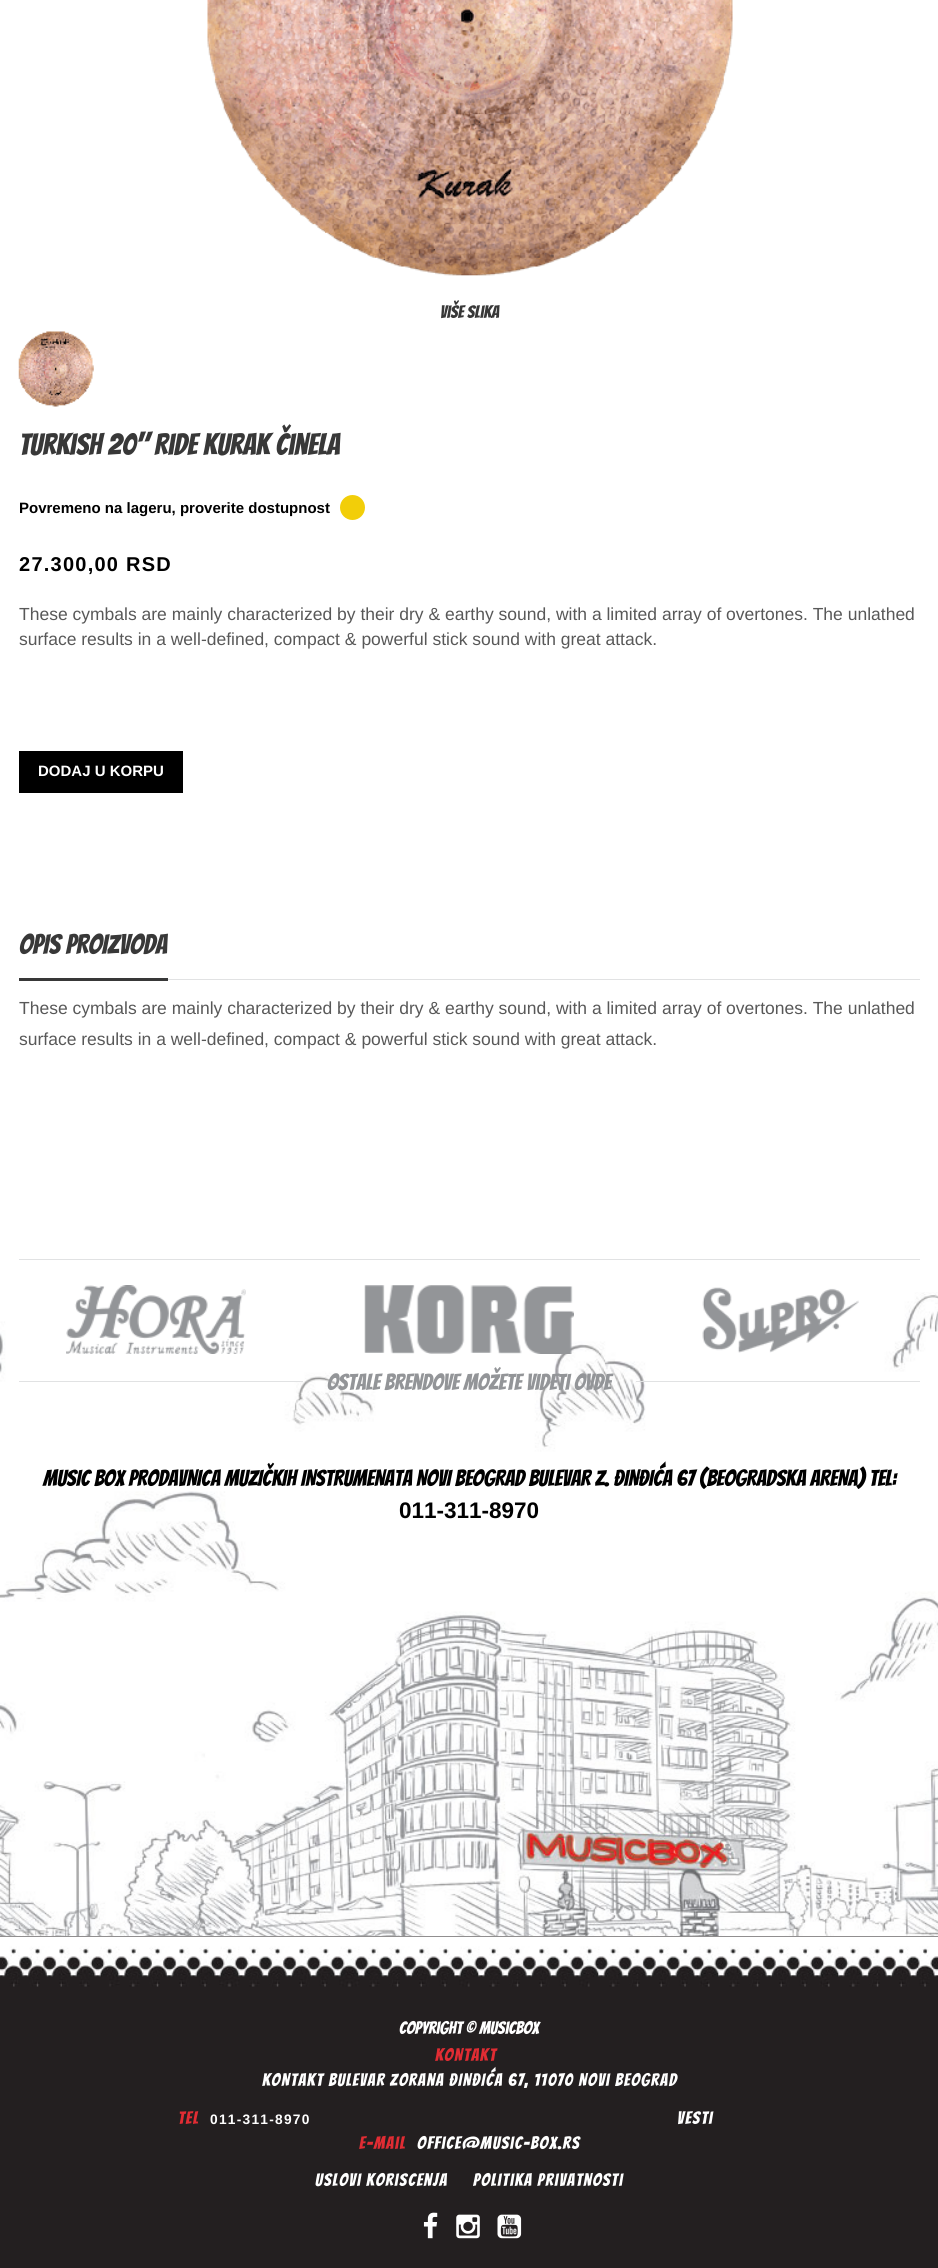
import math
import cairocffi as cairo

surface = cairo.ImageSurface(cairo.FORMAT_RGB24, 938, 2268)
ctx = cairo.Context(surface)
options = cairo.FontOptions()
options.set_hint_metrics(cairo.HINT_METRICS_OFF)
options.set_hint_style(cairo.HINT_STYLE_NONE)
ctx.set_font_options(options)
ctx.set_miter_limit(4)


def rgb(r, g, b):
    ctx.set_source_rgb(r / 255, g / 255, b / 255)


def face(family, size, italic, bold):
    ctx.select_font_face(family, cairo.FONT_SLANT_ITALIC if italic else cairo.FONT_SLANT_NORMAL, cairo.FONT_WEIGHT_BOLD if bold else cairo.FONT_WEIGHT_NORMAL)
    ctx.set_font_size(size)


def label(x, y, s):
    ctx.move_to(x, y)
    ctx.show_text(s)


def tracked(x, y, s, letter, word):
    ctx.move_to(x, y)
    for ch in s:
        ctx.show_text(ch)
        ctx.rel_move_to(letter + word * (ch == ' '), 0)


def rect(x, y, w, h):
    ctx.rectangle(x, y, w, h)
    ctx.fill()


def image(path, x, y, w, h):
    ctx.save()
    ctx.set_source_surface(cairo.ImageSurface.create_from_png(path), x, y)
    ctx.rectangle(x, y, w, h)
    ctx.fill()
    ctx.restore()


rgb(255, 255, 255)
ctx.paint()
image('image0.png', 0, 1292, 938, 644)
image('image1.png', 207, 0, 526, 276)
face('Bangers', 17.5, 0, 0)
rgb(56, 56, 56)
label(440, 318, 'Više slika')
image('image2.png', 18, 331, 76, 76)
face('Bangers', 30, 0, 0)
label(19, 455, 'Turkish 20" Ride Kurak činela')
face('Liberation Sans', 15, 0, 1)
rgb(0, 0, 0)
label(19, 513, 'Povremeno na lageru, proverite dostupnost')
rgb(242, 206, 9)
ctx.new_path()
ctx.arc(352.5, 507.5, 12.5, 0, 2 * math.pi)
ctx.fill()
face('Liberation Sans', 20, 0, 1)
rgb(0, 0, 0)
tracked(19, 571, '27.300,00 RSD', 1.25, 0)
face('Liberation Sans', 17.5, 0, 0)
rgb(88, 88, 88)
label(19, 620, 'These cymbals are mainly characterized by their dry & earthy sound, with a limited array of overtones. The unlathed')
label(19, 645, 'surface results in a well-defined, compact & powerful stick sound with great attack.')
rgb(0, 0, 0)
rect(19, 751, 164, 42)
face('Liberation Sans', 15, 0, 1)
rgb(255, 255, 255)
label(38, 776, 'DODAJ U KORPU')
rgb(225, 226, 227)
rect(168, 979, 752, 1)
face('Bangers', 27.5, 0, 0)
rgb(56, 56, 56)
label(19, 954, 'OPIS PROIZVODA')
rect(19, 978, 149, 3)
face('Liberation Sans', 17.5, 0, 0)
rgb(88, 88, 88)
label(19, 1014, 'These cymbals are mainly characterized by their dry & earthy sound, with a limited array of overtones. The unlathed')
label(19, 1045, 'surface results in a well-defined, compact & powerful stick sound with great attack.')
rgb(225, 226, 227)
rect(19, 1259, 901, 1)
image('image3.png', 66, 1285, 180, 69)
image('image4.png', 364, 1285, 210, 69)
image('image5.png', 702, 1287, 157, 66)
rect(19, 1381, 284, 1)
face('Bangers', 22.5, 0, 0)
rgb(147, 149, 152)
label(327, 1390, 'Ostale brendove možete videti ovde')
rgb(225, 226, 227)
rect(636, 1381, 284, 1)
rgb(0, 0, 0)
label(43, 1486, 'MUSIC BOX PRODAVNICA MUZIČKIH INSTRUMENATA NOVI BEOGRAD BULEVAR Z. ĐINĐIĆA 67 (BEOGRADSKA ARENA) TEL:')
face('Liberation Sans', 22.5, 0, 1)
label(399, 1518, '011-311-8970')
rgb(35, 31, 32)
rect(0, 1936, 938, 332)
image('image6.png', 0, 1936, 938, 51)
face('Bangers', 17.5, 0, 0)
rgb(255, 255, 255)
label(399, 2034, 'Copyright © Musicbox')
rgb(225, 44, 51)
tracked(435, 2061, 'KONTAKT', 1.25, 0)
rgb(255, 255, 255)
tracked(262, 2086, 'KONTAKT BULEVAR Zorana ĐINĐIĆA 67, 11070 Novi Beograd', 1.25, 0)
rgb(225, 44, 51)
tracked(178, 2124, 'TEL', 1.25, 0)
face('Liberation Sans', 13.75, 0, 1)
rgb(255, 255, 255)
tracked(210, 2124, '011-311-8970', 1.25, 0)
face('Bangers', 17.5, 0, 0)
tracked(677, 2124, 'Vesti', 1.25, 0)
rgb(225, 44, 51)
tracked(359, 2149, 'e-mail', 1.25, 0)
rgb(255, 255, 255)
tracked(417, 2149, 'office@music-box.rs', 1.25, 0)
tracked(315, 2186, 'Uslovi koriscenja', 1.25, 0)
tracked(473, 2186, 'Politika privatnosti', 1.25, 0)
image('image7.png', 423, 2212, 15, 27)
image('image8.png', 456, 2214, 24, 25)
image('image9.png', 497, 2214, 25, 25)
surface.write_to_png('render.png')
